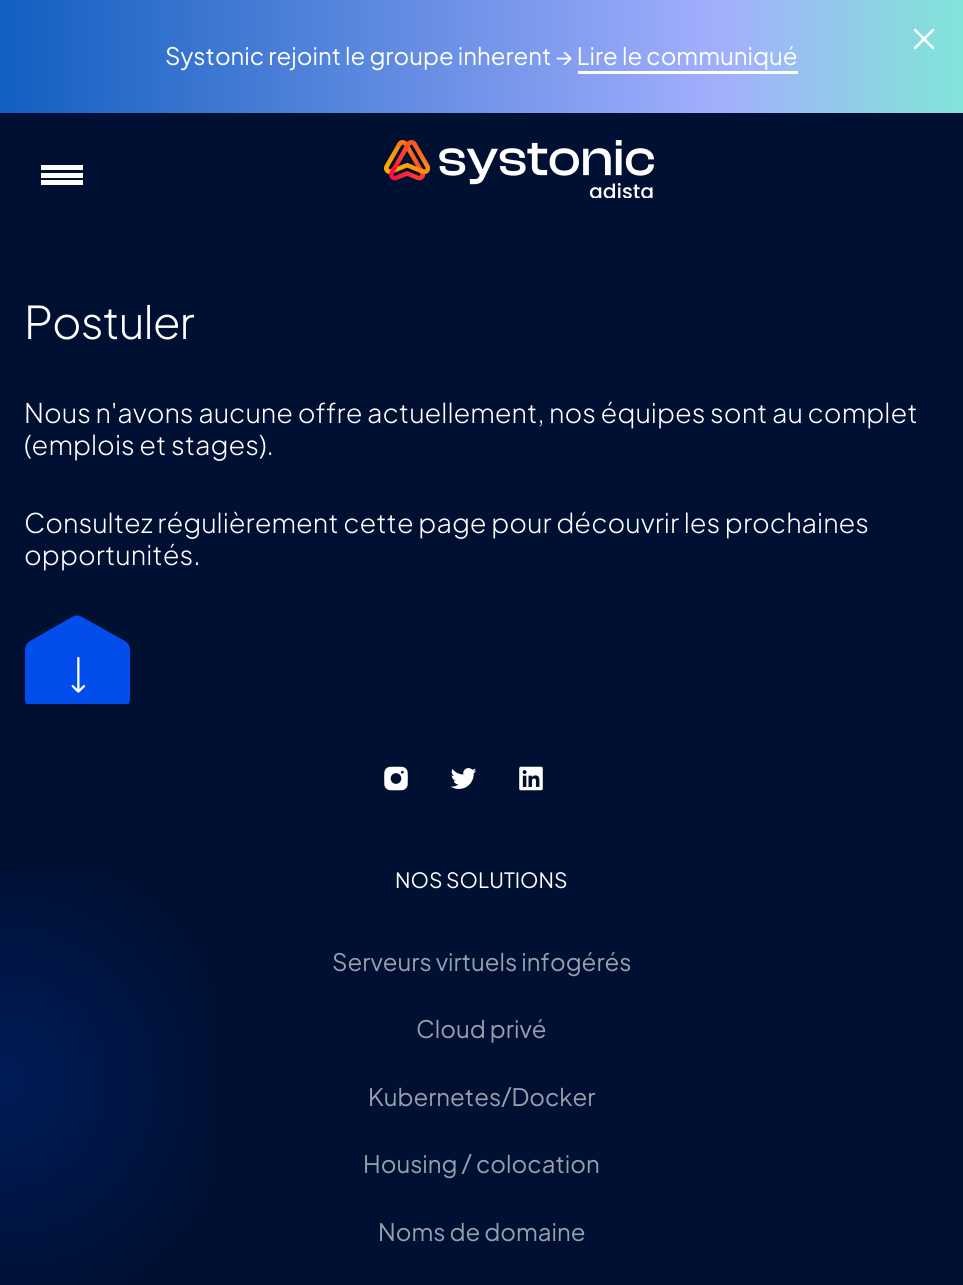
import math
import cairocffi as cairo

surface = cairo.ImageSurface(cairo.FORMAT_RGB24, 963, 1285)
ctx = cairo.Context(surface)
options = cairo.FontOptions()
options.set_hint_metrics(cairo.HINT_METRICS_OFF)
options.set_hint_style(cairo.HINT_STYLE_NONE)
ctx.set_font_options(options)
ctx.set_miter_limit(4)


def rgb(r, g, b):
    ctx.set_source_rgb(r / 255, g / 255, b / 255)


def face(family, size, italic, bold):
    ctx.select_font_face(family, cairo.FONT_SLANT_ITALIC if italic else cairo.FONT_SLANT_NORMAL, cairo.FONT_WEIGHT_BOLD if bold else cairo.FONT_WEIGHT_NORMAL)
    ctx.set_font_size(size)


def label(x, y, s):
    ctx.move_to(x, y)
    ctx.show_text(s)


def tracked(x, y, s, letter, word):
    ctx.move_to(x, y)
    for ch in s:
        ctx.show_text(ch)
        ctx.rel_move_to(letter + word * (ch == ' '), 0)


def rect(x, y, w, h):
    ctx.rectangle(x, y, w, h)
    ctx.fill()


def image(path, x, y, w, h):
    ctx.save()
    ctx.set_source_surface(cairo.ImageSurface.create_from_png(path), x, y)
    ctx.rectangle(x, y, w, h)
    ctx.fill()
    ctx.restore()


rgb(0, 16, 51)
ctx.paint()
gradient = cairo.LinearGradient(0, 56, 963, 56)
gradient.add_color_stop_rgba(0, 0.067, 0.373, 0.753, 1)
gradient.add_color_stop_rgba(0.75, 0.639, 0.686, 0.992, 1)
gradient.add_color_stop_rgba(1, 0.506, 0.898, 0.847, 1)
ctx.set_source(gradient)
rect(0, 0, 963, 113)
image('image0.png', 913, 28, 21, 21)
face('Plus Jakarta Sans', 24, 0, 0)
rgb(255, 255, 255)
label(165, 65, 'Systonic rejoint le groupe inherent → Lire le communiqué')
rect(578, 71, 220, 3)
rect(41, 165, 42, 5)
rect(41, 173, 42, 5)
rect(41, 180, 42, 5)
image('image1.png', 384, 140, 270, 58)
face('Plus Jakarta Sans Light', 45, 0, 0)
tracked(24, 339, 'Postuler', -1, 0)
face('Plus Jakarta Sans Light', 27, 0, 0)
label(24, 423, 'Nous n\'avons aucune offre actuellement, nos équipes sont au complet')
label(24, 455, '(emplois et stages).')
label(24, 533, 'Consultez régulièrement cette page pour découvrir les prochaines')
label(24, 565, 'opportunités.')
rgb(2, 77, 235)
ctx.new_path()
ctx.move_to(72, 617)
ctx.curve_to(75, 615, 79, 615, 82, 617)
ctx.line_to(125, 641)
ctx.curve_to(128, 643, 130, 646, 130, 650)
ctx.line_to(130, 699)
ctx.curve_to(130, 702, 128, 706, 125, 708)
ctx.line_to(82, 732)
ctx.curve_to(79, 734, 75, 734, 72, 732)
ctx.line_to(30, 708)
ctx.curve_to(27, 706, 25, 702, 25, 699)
ctx.line_to(25, 650)
ctx.curve_to(25, 646, 27, 643, 30, 641)
ctx.close_path()
ctx.fill()
image('image2.png', 71, 657, 15, 36)
rgb(0, 16, 51)
rect(26, 704, 103, 30)
gradient = cairo.RadialGradient(-0.3, 1081, 0, -0.3, 1081, 476)
gradient.add_color_stop_rgba(0, 0.008, 0.329, 1, 0.18)
gradient.add_color_stop_rgba(0.5, 0.008, 0.329, 1, 0)
ctx.set_source(gradient)
rect(0, 872, 209, 413)
image('image3.png', 384, 766, 24, 25)
image('image4.png', 450, 768, 27, 21)
image('image5.png', 519, 766, 24, 25)
face('Plus Jakarta Sans', 21, 0, 0)
rgb(255, 255, 255)
label(395, 888, 'NOS SOLUTIONS')
face('Plus Jakarta Sans', 24, 0, 0)
rgb(153, 159, 173)
label(332, 971, 'Serveurs virtuels infogérés')
label(416, 1038, 'Cloud privé')
label(368, 1106, 'Kubernetes/Docker')
label(363, 1173, 'Housing / colocation')
label(378, 1241, 'Noms de domaine')
surface.write_to_png('render.png')
